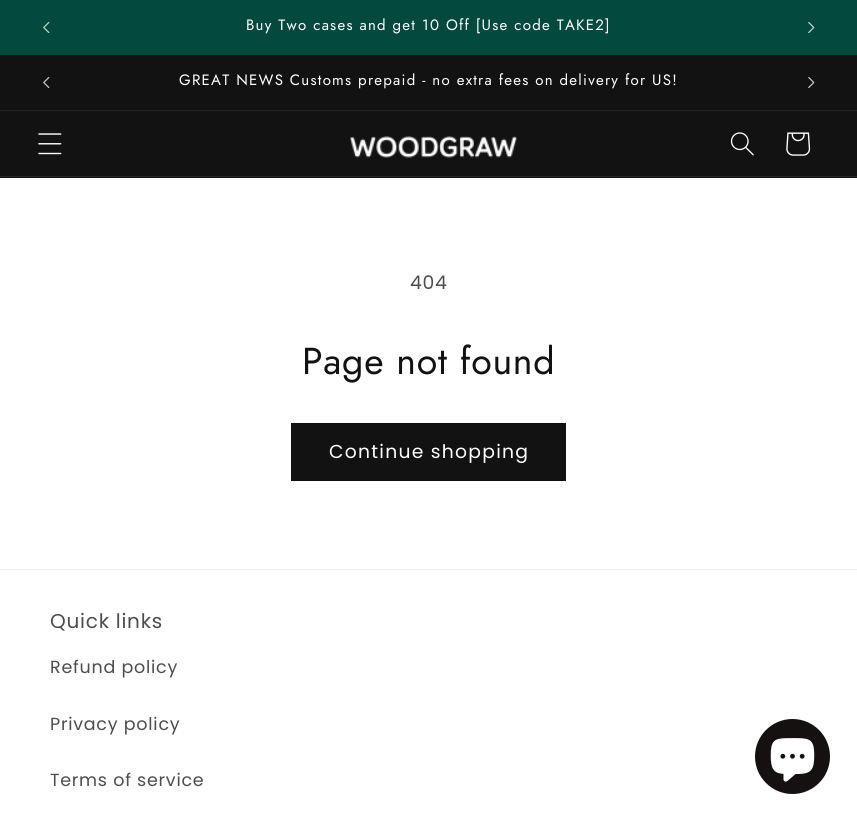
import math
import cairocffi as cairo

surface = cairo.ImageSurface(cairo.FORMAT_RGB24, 857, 819)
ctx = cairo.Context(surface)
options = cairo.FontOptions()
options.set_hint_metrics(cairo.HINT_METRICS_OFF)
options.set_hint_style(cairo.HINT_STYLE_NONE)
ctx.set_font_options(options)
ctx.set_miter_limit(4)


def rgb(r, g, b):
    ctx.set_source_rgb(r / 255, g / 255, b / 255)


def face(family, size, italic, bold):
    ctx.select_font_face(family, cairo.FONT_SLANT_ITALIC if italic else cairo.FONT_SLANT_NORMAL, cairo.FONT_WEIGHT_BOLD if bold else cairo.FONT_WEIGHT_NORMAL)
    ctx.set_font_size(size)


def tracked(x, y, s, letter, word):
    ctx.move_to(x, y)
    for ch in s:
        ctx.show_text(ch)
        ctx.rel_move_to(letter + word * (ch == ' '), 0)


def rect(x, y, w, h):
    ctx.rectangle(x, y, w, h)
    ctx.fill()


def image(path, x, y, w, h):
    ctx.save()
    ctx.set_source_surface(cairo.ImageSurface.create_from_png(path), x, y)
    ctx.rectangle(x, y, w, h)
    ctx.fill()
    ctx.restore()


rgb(255, 255, 255)
ctx.paint()
rgb(3, 73, 61)
rect(0, 0, 857, 55)
image('image0.png', 43, 21, 7, 12)
face('Jost', 15, 0, 0)
rgb(255, 255, 255)
tracked(246, 30, 'Buy Two cases and get 10 Off [Use code TAKE2]', 1.25, 0)
image('image1.png', 808, 22, 7, 11)
rgb(18, 18, 18)
rect(0, 55, 857, 55)
rgb(37, 37, 37)
rect(0, 110, 857, 1)
image('image2.png', 43, 76, 7, 12)
rgb(255, 255, 255)
tracked(179, 85, 'GREAT NEWS Customs prepaid - no extra fees on delivery for US!', 1.25, 0)
image('image3.png', 808, 77, 7, 11)
rgb(18, 18, 18)
rect(0, 111, 857, 67)
rgb(37, 37, 37)
rect(0, 176, 857, 1)
image('image4.png', 38, 133, 24, 22)
image('image5.png', 350, 136, 167, 22)
image('image6.png', 730, 132, 24, 24)
image('image7.png', 786, 132, 25, 24)
face('Poppins', 18.75, 0, 0)
rgb(77, 77, 77)
tracked(410, 289, '404', 0.75, 0)
face('Jost', 37.5, 0, 0)
rgb(18, 18, 18)
tracked(302, 374, 'Page not found', 0.75, 0)
rect(291, 423, 275, 58)
face('Poppins', 18.75, 0, 0)
rgb(255, 255, 255)
tracked(329, 458, 'Continue shopping', 1.25, 0)
rgb(236, 236, 236)
rect(0, 569, 857, 1)
face('Poppins', 20, 0, 0)
rgb(77, 77, 77)
tracked(50, 628, 'Quick links', 0.75, 0)
face('Poppins', 17.5, 0, 0)
tracked(50, 673, 'Refund policy', 0.75, 0)
tracked(50, 730, 'Privacy policy', 0.75, 0)
tracked(50, 786, 'Terms of service', 0.75, 0)
rgb(22, 17, 17)
ctx.new_path()
ctx.arc(792.5, 756.5, 37.5, 0, 2 * math.pi)
ctx.fill()
image('image8.png', 770, 738, 45, 44)
surface.write_to_png('render.png')
